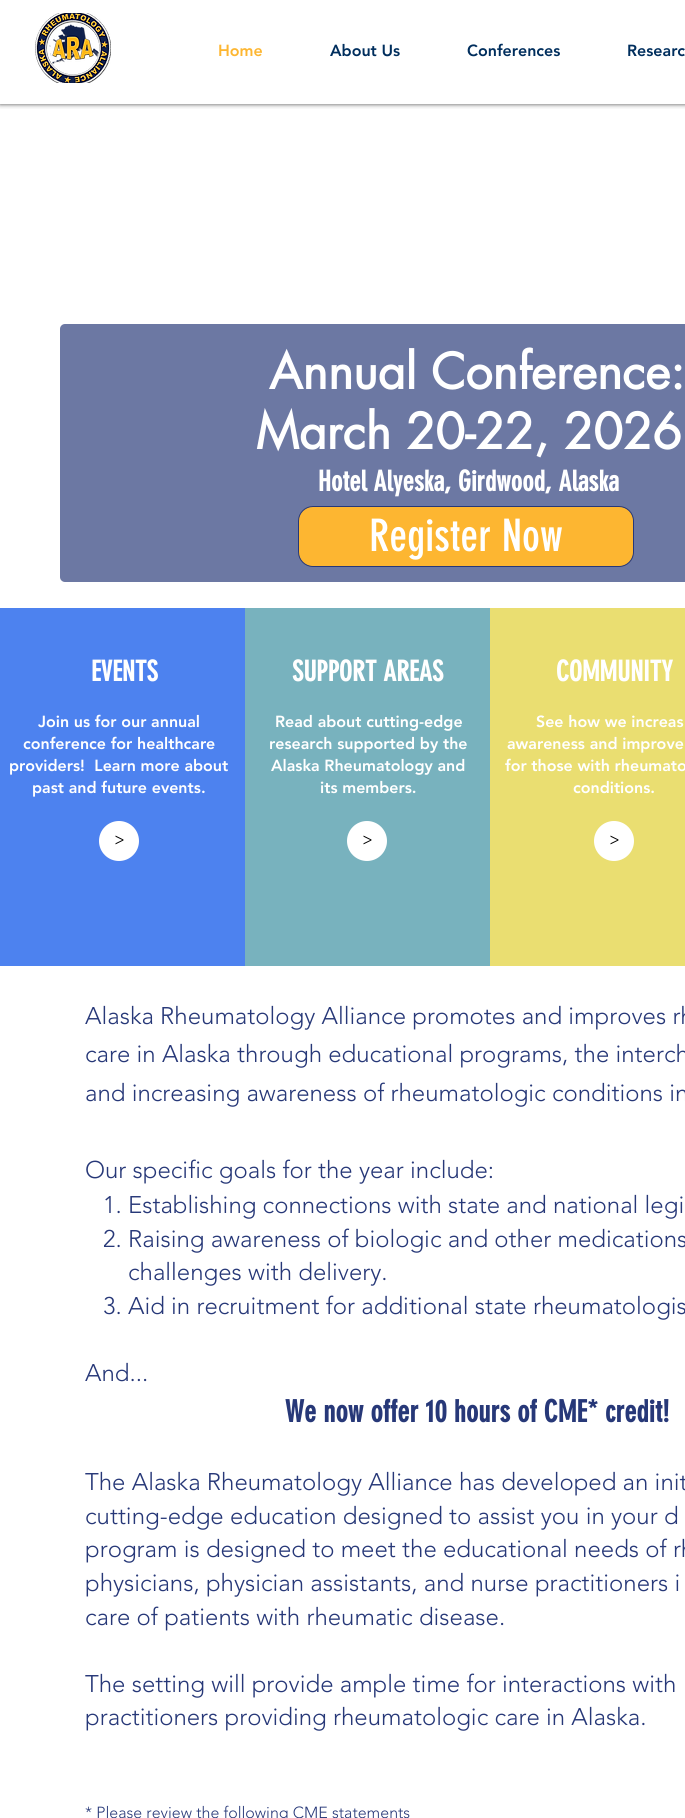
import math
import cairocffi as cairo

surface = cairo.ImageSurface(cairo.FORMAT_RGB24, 685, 1818)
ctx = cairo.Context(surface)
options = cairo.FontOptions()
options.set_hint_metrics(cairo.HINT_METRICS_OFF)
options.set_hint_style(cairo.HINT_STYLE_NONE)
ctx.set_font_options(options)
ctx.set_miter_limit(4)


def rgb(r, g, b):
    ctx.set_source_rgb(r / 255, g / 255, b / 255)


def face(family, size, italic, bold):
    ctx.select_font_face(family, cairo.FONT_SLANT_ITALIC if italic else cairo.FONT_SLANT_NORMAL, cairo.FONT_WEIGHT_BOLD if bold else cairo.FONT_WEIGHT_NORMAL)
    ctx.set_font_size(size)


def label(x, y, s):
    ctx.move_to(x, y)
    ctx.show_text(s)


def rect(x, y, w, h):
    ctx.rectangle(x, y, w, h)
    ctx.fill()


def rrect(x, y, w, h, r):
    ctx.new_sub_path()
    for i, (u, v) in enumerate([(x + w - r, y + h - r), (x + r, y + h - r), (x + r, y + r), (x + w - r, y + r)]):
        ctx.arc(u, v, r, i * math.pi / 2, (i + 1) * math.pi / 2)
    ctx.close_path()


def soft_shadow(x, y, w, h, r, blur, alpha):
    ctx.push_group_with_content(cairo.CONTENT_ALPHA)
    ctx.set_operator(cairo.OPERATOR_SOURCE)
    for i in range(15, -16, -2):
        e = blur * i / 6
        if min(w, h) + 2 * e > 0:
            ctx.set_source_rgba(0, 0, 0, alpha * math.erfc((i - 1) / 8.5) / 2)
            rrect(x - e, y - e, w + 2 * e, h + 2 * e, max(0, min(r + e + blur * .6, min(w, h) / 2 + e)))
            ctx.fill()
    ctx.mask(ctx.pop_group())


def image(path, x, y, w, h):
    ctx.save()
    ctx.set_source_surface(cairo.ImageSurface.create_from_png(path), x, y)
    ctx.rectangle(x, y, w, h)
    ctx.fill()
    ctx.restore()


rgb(255, 255, 255)
ctx.paint()
ctx.save()
ctx.rectangle(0, 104, 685, 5)
ctx.clip()
rgb(0, 0, 0)
soft_shadow(0, 0, 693, 104, 0, 2.5, 0.7)
ctx.restore()
image('image0.png', 35, 13, 76, 70)
face('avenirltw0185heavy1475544 Black', 16, 0, 0)
rgb(253, 182, 49)
label(218, 56, 'Home')
rgb(0, 46, 93)
label(330, 56, 'About Us')
label(467, 56, 'Conferences')
label(627, 56, 'Researc')
rgb(108, 120, 163)
rrect(60, 324, 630, 258, 5)
ctx.fill()
face('futura', 48, 0, 1)
rgb(255, 255, 255)
label(269, 389, 'Annual Conference:')
label(256, 449, 'March 20-22, 2026')
face('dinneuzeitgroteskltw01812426', 28, 0, 1)
label(318, 491, 'Hotel Alyeska, Girdwood, Alaska')
rgb(253, 182, 49)
rrect(298.5, 506.5, 335, 60, 14.5)
ctx.fill_preserve()
rgb(39, 56, 120)
ctx.set_line_width(1)
ctx.stroke()
face('dinneuzeitgroteskltw01812426', 44, 0, 0)
rgb(255, 255, 255)
label(369, 551, 'Register Now')
rgb(77, 130, 239)
rect(0, 608, 245, 358)
face('dinneuzeitgroteskltw01812426', 28, 0, 1)
rgb(255, 255, 255)
label(91, 681, 'EVENTS')
face('avenirltw0185heavy1475544 Black', 16, 0, 0)
label(38, 727, 'Join us for our annual')
label(23, 749, 'conference for healthcare')
label(9, 771, 'providers!  Learn more about')
label(32, 793, 'past and future events.')
ctx.new_path()
ctx.arc(119, 841, 20, 0, 2 * math.pi)
ctx.fill()
face('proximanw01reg', 18, 0, 0)
rgb(0, 0, 0)
label(115, 846, '>')
rgb(120, 178, 190)
rect(245, 608, 245, 358)
face('dinneuzeitgroteskltw01812426', 28, 0, 1)
rgb(255, 255, 255)
label(292, 681, 'SUPPORT AREAS')
face('avenirltw0185heavy1475544 Black', 16, 0, 0)
label(275, 727, 'Read about cutting-edge')
label(269, 749, 'research supported by the')
label(271, 771, 'Alaska Rheumatology and')
label(320, 793, 'its members.')
ctx.new_path()
ctx.arc(367, 841, 20, 0, 2 * math.pi)
ctx.fill()
face('proximanw01reg', 18, 0, 0)
rgb(0, 0, 0)
label(363, 846, '>')
rgb(234, 222, 113)
rect(490, 608, 195, 358)
face('dinneuzeitgroteskltw01812426', 28, 0, 1)
rgb(255, 255, 255)
label(556, 681, 'COMMUNITY')
face('avenirltw0185heavy1475544 Black', 16, 0, 0)
label(536, 727, 'See how we increas')
label(507, 749, 'awareness and improve')
label(505, 771, 'for those with rheumato')
label(573, 793, 'conditions.')
ctx.new_path()
ctx.arc(614, 841, 20, 0, 2 * math.pi)
ctx.fill()
face('proximanw01reg', 18, 0, 0)
rgb(0, 0, 0)
label(610, 846, '>')
face('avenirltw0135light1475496 Light', 24, 0, 0)
rgb(39, 56, 120)
label(85, 1024, 'Alaska Rheumatology Alliance promotes and improves rh')
label(85, 1062, 'care in Alaska through educational programs, the interch')
label(85, 1101, 'and increasing awareness of rheumatologic conditions in')
label(85, 1178, 'Our specific goals for the year include:')
label(103, 1213, '1. Establishing connections with state and national legi')
label(103, 1247, '2. Raising awareness of biologic and other medications')
label(128, 1280, 'challenges with delivery.')
label(103, 1314, '3. Aid in recruitment for additional state rheumatologis')
label(85, 1381, 'And...')
face('dinneuzeitgroteskltw01812426', 30, 0, 1)
label(285, 1422, 'We now offer 10 hours of CME* credit!')
face('avenirltw0135light1475496 Light', 24, 0, 0)
label(85, 1490, 'The Alaska Rheumatology Alliance has developed an init')
label(85, 1524, 'cutting-edge education designed to assist you in your d')
label(85, 1557, 'program is designed to meet the educational needs of rh')
label(85, 1591, 'physicians, physician assistants, and nurse practitioners i')
label(85, 1625, 'care of patients with rheumatic disease.')
label(85, 1692, 'The setting will provide ample time for interactions with')
label(85, 1725, 'practitioners providing rheumatologic care in Alaska.')
face('avenirltw0135light1475496 Light', 16, 0, 0)
label(85, 1818, '* Please review the following CME statements')
surface.write_to_png('render.png')
